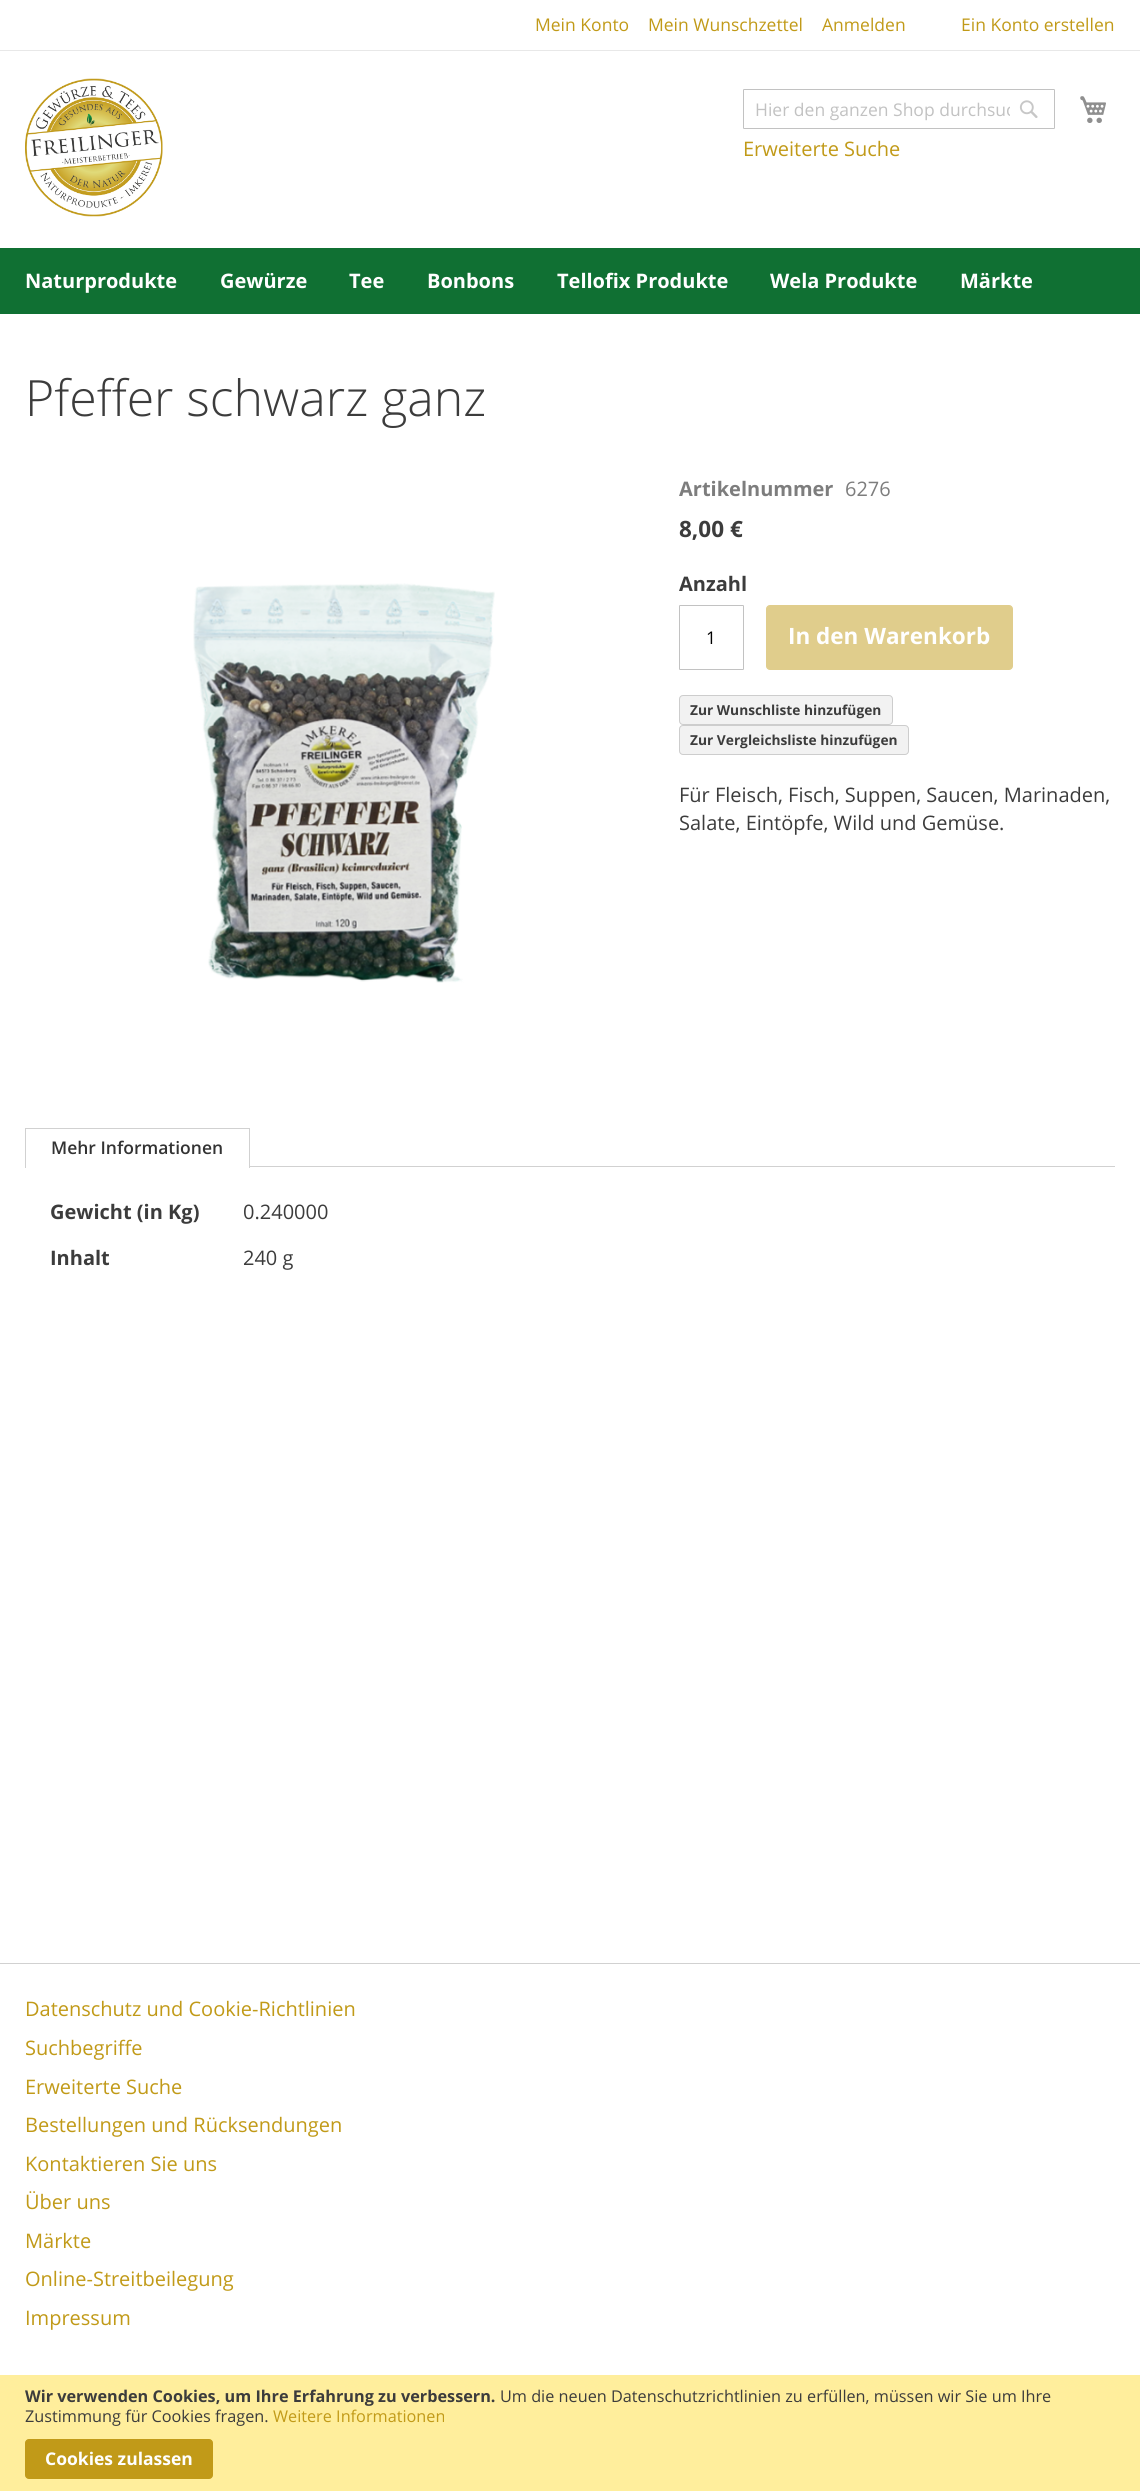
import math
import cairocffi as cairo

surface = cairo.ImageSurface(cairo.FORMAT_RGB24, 1140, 2491)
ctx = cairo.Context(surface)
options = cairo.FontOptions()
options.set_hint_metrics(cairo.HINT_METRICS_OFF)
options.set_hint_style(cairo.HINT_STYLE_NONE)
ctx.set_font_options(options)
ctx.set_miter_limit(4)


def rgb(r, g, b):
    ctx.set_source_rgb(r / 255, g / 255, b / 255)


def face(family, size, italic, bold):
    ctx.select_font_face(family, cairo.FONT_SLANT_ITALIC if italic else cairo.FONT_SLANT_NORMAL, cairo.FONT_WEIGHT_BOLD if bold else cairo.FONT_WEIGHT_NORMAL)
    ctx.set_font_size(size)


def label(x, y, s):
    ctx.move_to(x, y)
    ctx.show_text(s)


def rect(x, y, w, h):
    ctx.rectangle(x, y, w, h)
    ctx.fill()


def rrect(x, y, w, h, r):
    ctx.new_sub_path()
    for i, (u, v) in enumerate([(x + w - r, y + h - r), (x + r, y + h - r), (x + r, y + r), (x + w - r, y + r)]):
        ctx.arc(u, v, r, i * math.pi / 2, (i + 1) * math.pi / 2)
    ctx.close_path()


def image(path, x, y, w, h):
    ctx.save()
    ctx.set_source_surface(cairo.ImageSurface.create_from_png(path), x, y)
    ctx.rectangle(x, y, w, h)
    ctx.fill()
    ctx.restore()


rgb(255, 255, 255)
ctx.paint()
rgb(232, 232, 232)
rect(0, 50, 1140, 1)
face('Open Sans', 17.5, 0, 0)
rgb(193, 154, 24)
label(535, 31, 'Mein Konto')
label(648, 31, 'Mein Wunschzettel')
label(822, 31, 'Anmelden')
label(961, 31, 'Ein Konto erstellen')
image('image0.png', 25, 78, 138, 139)
rrect(743.5, 89.5, 311, 39, 0.5)
rgb(194, 194, 194)
ctx.set_line_width(1)
ctx.stroke()
ctx.save()
ctx.rectangle(755, 98, 255, 23)
ctx.clip()
label(755, 116, 'Hier den ganzen Shop durchsuc')
ctx.restore()
face('Open Sans', 20, 0, 0)
rgb(193, 154, 24)
label(743, 156, 'Erweiterte Suche')
image('image1.png', 1019, 100, 19, 18)
image('image2.png', 1080, 96, 26, 27)
rgb(16, 112, 51)
rect(0, 248, 1140, 66)
face('Open Sans', 20, 0, 1)
rgb(255, 255, 255)
label(25, 288, 'Naturprodukte')
label(220, 288, 'Gewürze')
label(349, 288, 'Tee')
label(427, 288, 'Bonbons')
label(557, 288, 'Tellofix Produkte')
label(770, 288, 'Wela Produkte')
label(960, 288, 'Märkte')
face('Open Sans Light', 50, 0, 0)
rgb(60, 60, 60)
label(25, 416, 'Pfeffer schwarz ganz')
image('image3.png', 193, 583, 302, 400)
face('Open Sans', 20, 0, 1)
rgb(125, 125, 125)
label(679, 496, 'Artikelnummer')
face('Open Sans', 20, 0, 0)
label(845, 496, '6276')
face('Open Sans', 22.5, 0, 1)
rgb(60, 60, 60)
label(679, 537, '8,00 €')
face('Open Sans', 20, 0, 1)
label(679, 591, 'Anzahl')
rrect(679.5, 605.5, 64, 64, 0.5)
rgb(194, 194, 194)
ctx.stroke()
face('Open Sans', 17.5, 0, 0)
rgb(0, 0, 0)
label(706, 644, '1')
rgb(224, 205, 140)
rrect(766.5, 605.5, 246, 64, 3.5)
ctx.fill_preserve()
ctx.stroke()
face('Open Sans', 22.5, 0, 1)
rgb(255, 255, 255)
label(788, 644, 'In den Warenkorb')
rgb(242, 242, 242)
rrect(679.5, 695.5, 213, 29, 3.5)
ctx.fill_preserve()
rgb(205, 205, 205)
ctx.stroke()
face('Open Sans', 13.75, 0, 1)
rgb(60, 60, 60)
label(690, 715, 'Zur Wunschliste hinzufügen')
rgb(242, 242, 242)
rrect(679.5, 725.5, 229, 29, 3.5)
ctx.fill_preserve()
rgb(205, 205, 205)
ctx.stroke()
rgb(60, 60, 60)
label(690, 745, 'Zur Vergleichsliste hinzufügen')
face('Open Sans', 20, 0, 0)
label(679, 802, 'Für Fleisch, Fisch, Suppen, Saucen, Marinaden,')
label(679, 830, 'Salate, Eintöpfe, Wild und Gemüse.')
rgb(209, 209, 209)
rect(25, 1128, 225, 1)
rect(249, 1128, 1, 40)
rect(25, 1128, 1, 40)
face('Open Sans SemiBold', 17.5, 0, 0)
rgb(51, 51, 51)
label(51, 1154, 'Mehr Informationen')
rgb(209, 209, 209)
rect(250, 1166, 865, 1)
face('Open Sans', 20, 0, 1)
rgb(60, 60, 60)
label(50, 1219, 'Gewicht (in Kg)')
face('Open Sans', 20, 0, 0)
label(243, 1219, '0.240000')
face('Open Sans', 20, 0, 1)
label(50, 1265, 'Inhalt')
face('Open Sans', 20, 0, 0)
label(243, 1265, '240 g')
rgb(209, 209, 209)
rect(0, 1963, 1140, 1)
rgb(193, 154, 24)
label(25, 2016, 'Datenschutz und Cookie-Richtlinien')
label(25, 2055, 'Suchbegriffe')
label(25, 2094, 'Erweiterte Suche')
label(25, 2132, 'Bestellungen und Rücksendungen')
label(25, 2171, 'Kontaktieren Sie uns')
label(25, 2209, 'Über uns')
label(25, 2248, 'Märkte')
label(25, 2286, 'Online-Streitbeilegung')
label(25, 2325, 'Impressum')
rgb(255, 238, 156)
rect(0, 2375, 1140, 116)
face('Open Sans', 16.25, 0, 1)
rgb(60, 60, 60)
label(25, 2402, 'Wir verwenden Cookies, um Ihre Erfahrung zu verbessern.')
face('Open Sans', 16.25, 0, 0)
label(500, 2402, 'Um die neuen Datenschutzrichtlinien zu erfüllen, müssen wir Sie um Ihre')
label(25, 2422, 'Zustimmung für Cookies fragen.')
rgb(193, 154, 24)
label(273, 2422, 'Weitere Informationen')
rrect(25.5, 2439.5, 187, 39, 3.5)
ctx.fill_preserve()
ctx.stroke()
face('Open Sans', 17.5, 0, 1)
rgb(255, 255, 255)
label(45, 2465, 'Cookies zulassen')
surface.write_to_png('render.png')
